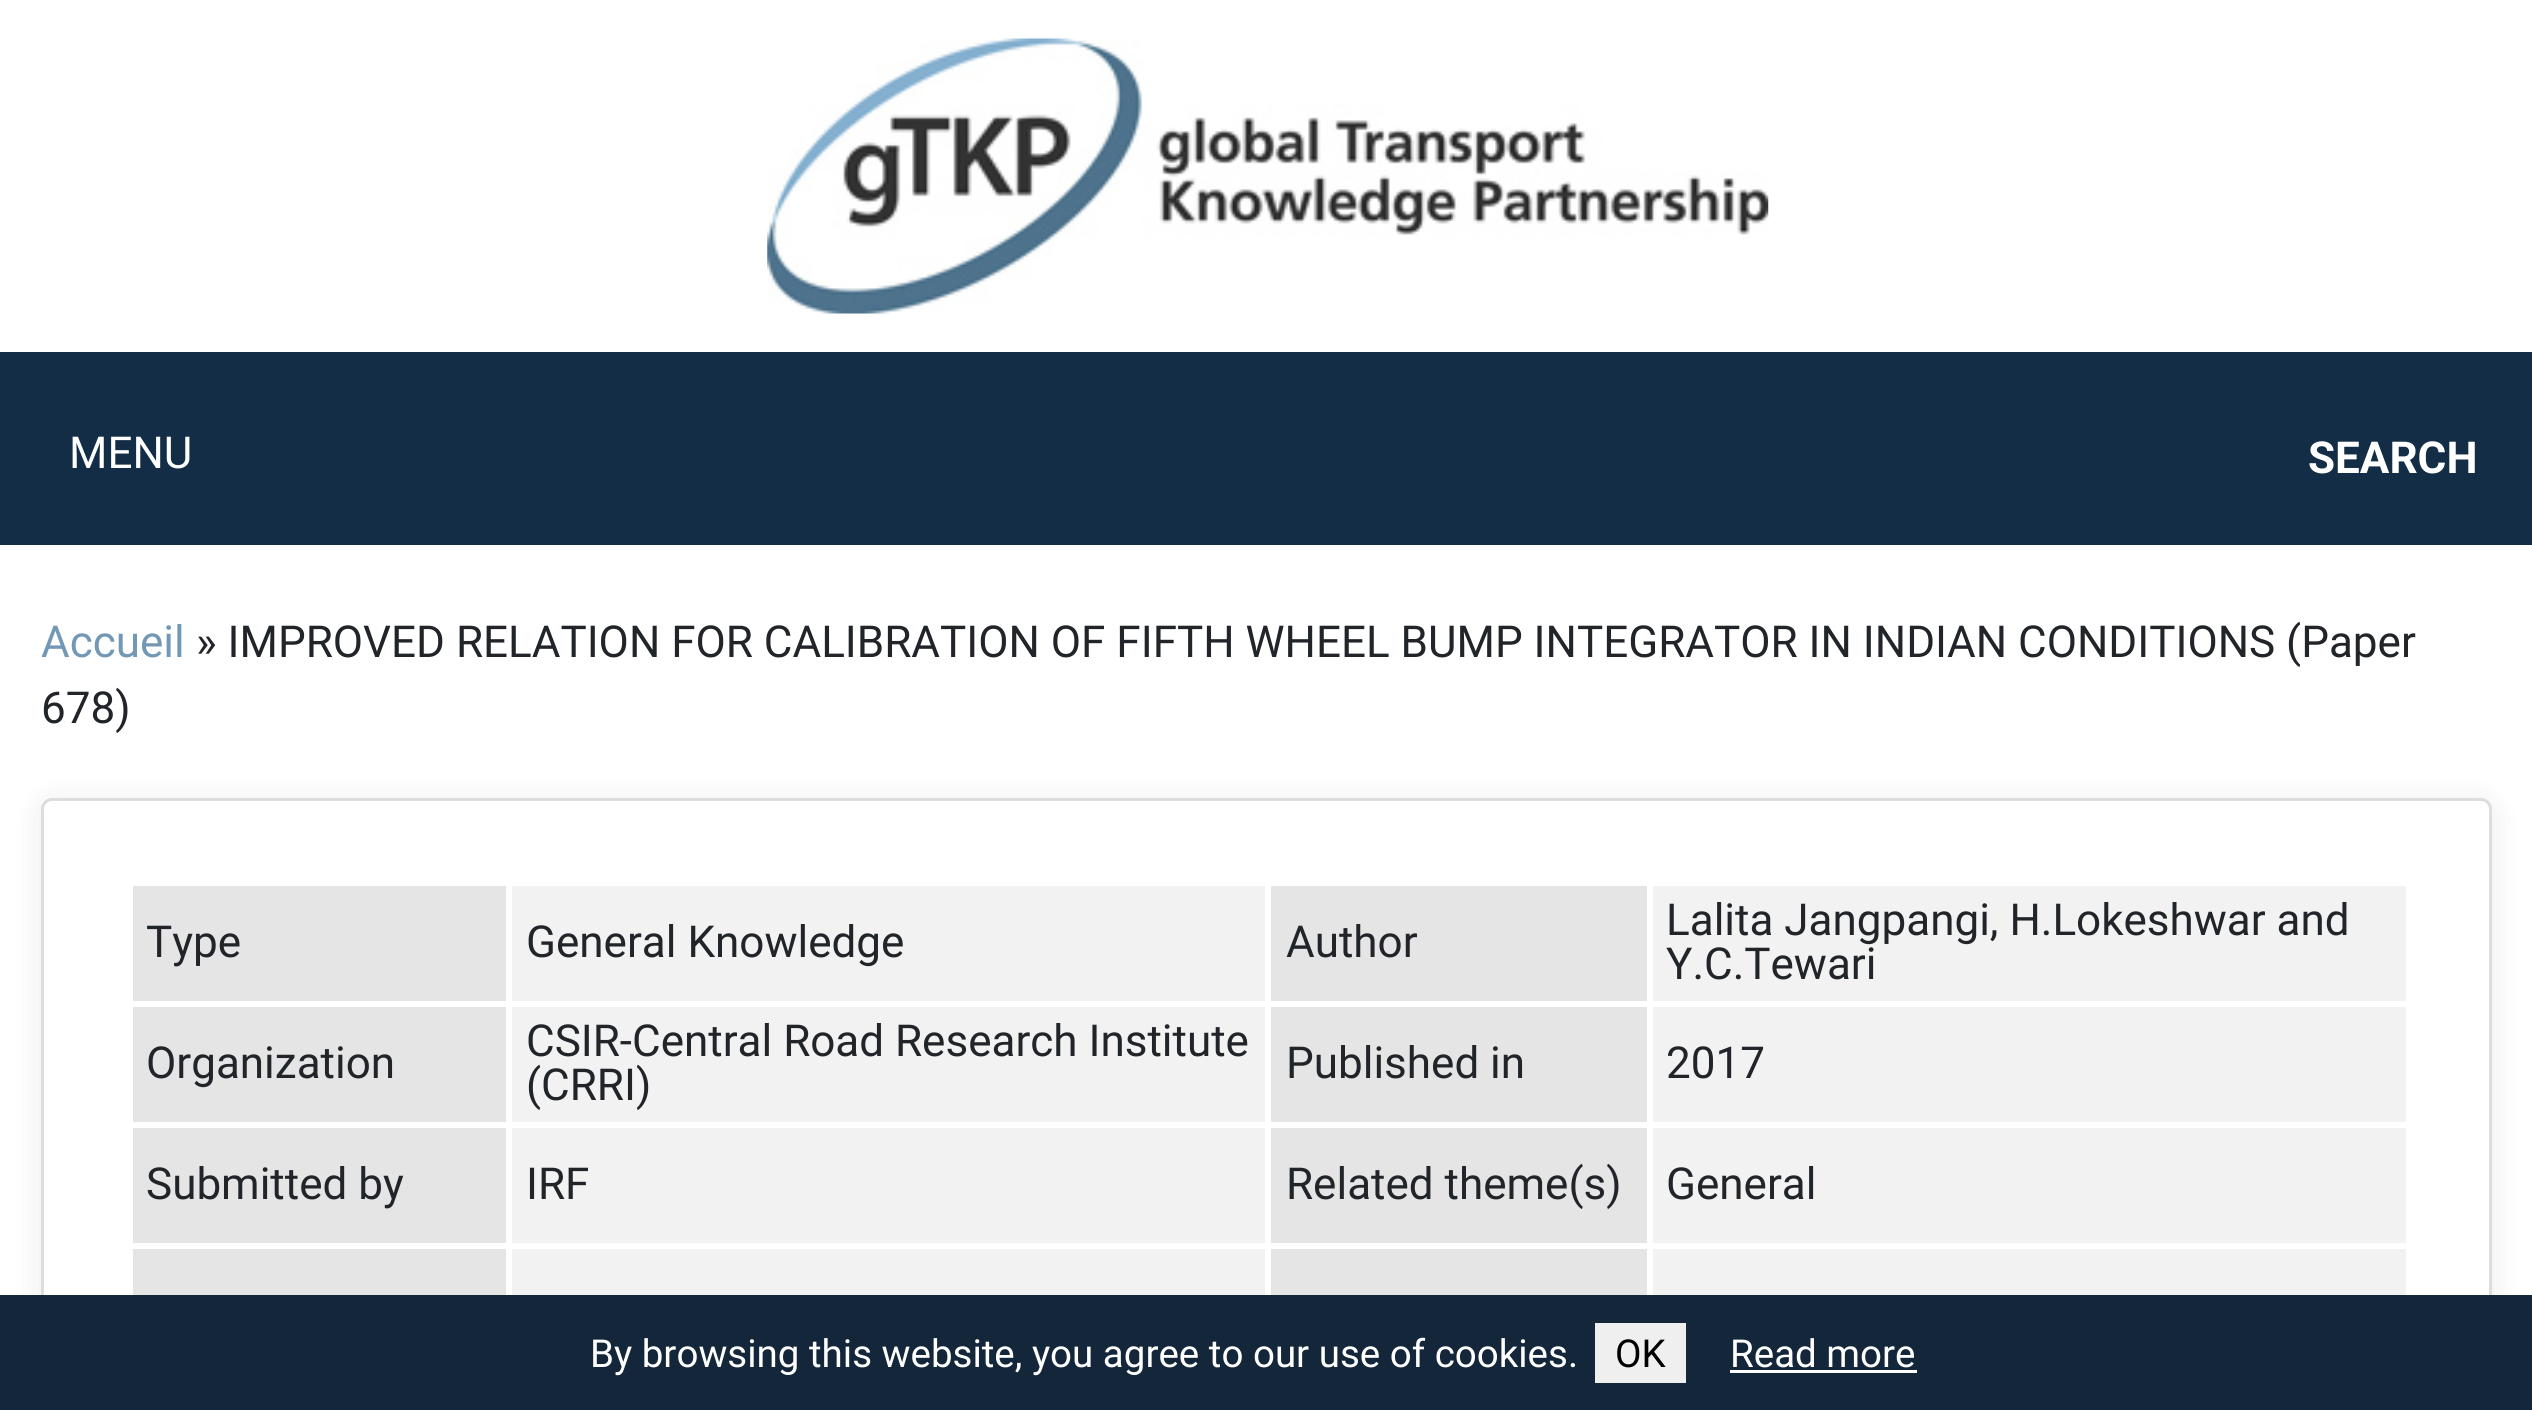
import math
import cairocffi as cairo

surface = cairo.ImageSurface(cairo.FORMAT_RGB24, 2532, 1410)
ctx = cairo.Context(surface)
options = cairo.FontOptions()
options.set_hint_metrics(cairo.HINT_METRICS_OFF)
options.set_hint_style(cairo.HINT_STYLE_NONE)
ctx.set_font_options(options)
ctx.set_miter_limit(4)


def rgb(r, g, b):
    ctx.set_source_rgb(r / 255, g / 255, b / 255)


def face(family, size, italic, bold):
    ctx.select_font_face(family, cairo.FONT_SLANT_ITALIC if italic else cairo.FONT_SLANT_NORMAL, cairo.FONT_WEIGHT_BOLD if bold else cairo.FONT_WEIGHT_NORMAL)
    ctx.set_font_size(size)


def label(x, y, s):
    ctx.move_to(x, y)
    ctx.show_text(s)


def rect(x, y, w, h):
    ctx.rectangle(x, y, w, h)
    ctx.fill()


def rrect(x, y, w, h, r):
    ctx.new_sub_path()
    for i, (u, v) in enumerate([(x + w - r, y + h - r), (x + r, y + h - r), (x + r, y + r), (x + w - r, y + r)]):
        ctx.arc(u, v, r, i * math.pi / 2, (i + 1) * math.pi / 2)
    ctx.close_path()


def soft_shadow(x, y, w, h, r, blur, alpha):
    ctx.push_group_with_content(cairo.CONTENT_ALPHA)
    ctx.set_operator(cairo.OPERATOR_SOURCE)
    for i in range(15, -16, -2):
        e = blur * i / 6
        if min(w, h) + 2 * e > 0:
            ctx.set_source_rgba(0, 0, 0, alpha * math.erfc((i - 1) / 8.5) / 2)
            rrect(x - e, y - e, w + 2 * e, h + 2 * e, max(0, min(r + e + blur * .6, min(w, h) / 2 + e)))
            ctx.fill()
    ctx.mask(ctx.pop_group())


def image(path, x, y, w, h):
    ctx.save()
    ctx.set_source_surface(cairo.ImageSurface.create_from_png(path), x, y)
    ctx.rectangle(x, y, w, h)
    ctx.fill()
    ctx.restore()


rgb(255, 255, 255)
ctx.paint()
image('image0.png', 767, 38, 1002, 276)
rgb(19, 45, 71)
rect(0, 352, 2532, 193)
face('Roboto', 44, 0, 0)
rgb(255, 255, 255)
label(69, 468, 'MENU')
face('Roboto', 44, 0, 1)
label(2308, 473, 'SEARCH')
face('Roboto', 44, 0, 0)
rgb(114, 152, 181)
label(41, 657, 'Accueil')
rgb(33, 37, 41)
label(196, 657, '» IMPROVED RELATION FOR CALIBRATION OF FIFTH WHEEL BUMP INTEGRATOR IN INDIAN CONDITIONS (Paper')
label(41, 723, '678)')
rgb(0, 0, 0)
soft_shadow(41, 803, 2451, 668, 11, 16.5, 0.08)
rgb(255, 255, 255)
rrect(42.5, 799.5, 2448, 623, 9.5)
ctx.fill_preserve()
rgb(221, 221, 221)
ctx.set_line_width(3)
ctx.stroke()
rgb(229, 229, 229)
rect(133, 886, 373, 115)
rgb(33, 37, 41)
label(146, 957, 'Type')
rgb(242, 242, 242)
rect(512, 886, 753, 115)
rgb(33, 37, 41)
label(526, 957, 'General Knowledge')
rgb(229, 229, 229)
rect(1271, 886, 376, 115)
rgb(33, 37, 41)
label(1286, 957, 'Author')
rgb(242, 242, 242)
rect(1653, 886, 753, 115)
rgb(33, 37, 41)
label(1666, 935, 'Lalita Jangpangi, H.Lokeshwar and')
label(1666, 979, 'Y.C.Tewari')
rgb(229, 229, 229)
rect(133, 1007, 373, 115)
rgb(33, 37, 41)
label(146, 1078, 'Organization')
rgb(242, 242, 242)
rect(512, 1007, 753, 115)
rgb(33, 37, 41)
label(526, 1056, 'CSIR-Central Road Research Institute')
label(526, 1100, '(CRRI)')
rgb(229, 229, 229)
rect(1271, 1007, 376, 115)
rgb(33, 37, 41)
label(1286, 1078, 'Published in')
rgb(242, 242, 242)
rect(1653, 1007, 753, 115)
rgb(33, 37, 41)
label(1666, 1078, '2017')
rgb(229, 229, 229)
rect(133, 1128, 373, 115)
rgb(33, 37, 41)
label(146, 1199, 'Submitted by')
rgb(242, 242, 242)
rect(512, 1128, 753, 115)
rgb(33, 37, 41)
label(526, 1199, 'IRF')
rgb(229, 229, 229)
rect(1271, 1128, 376, 115)
rgb(33, 37, 41)
label(1286, 1199, 'Related theme(s)')
rgb(242, 242, 242)
rect(1653, 1128, 753, 115)
rgb(33, 37, 41)
label(1666, 1199, 'General')
rgb(229, 229, 229)
rect(133, 1249, 373, 46)
rgb(242, 242, 242)
rect(512, 1249, 753, 46)
rgb(229, 229, 229)
rect(1271, 1249, 376, 46)
rgb(242, 242, 242)
rect(1653, 1249, 753, 46)
rgb(19, 38, 58)
rect(0, 1295, 2532, 115)
face('Roboto', 38.5, 0, 0)
rgb(255, 255, 255)
label(590, 1367, 'By browsing this website, you agree to our use of cookies.')
rgb(239, 239, 239)
rect(1595, 1323, 91, 60)
rgb(0, 0, 0)
label(1615, 1367, 'OK')
rgb(255, 255, 255)
label(1730, 1367, 'Read more')
rect(1730, 1370, 187, 3)
surface.write_to_png('render.png')
